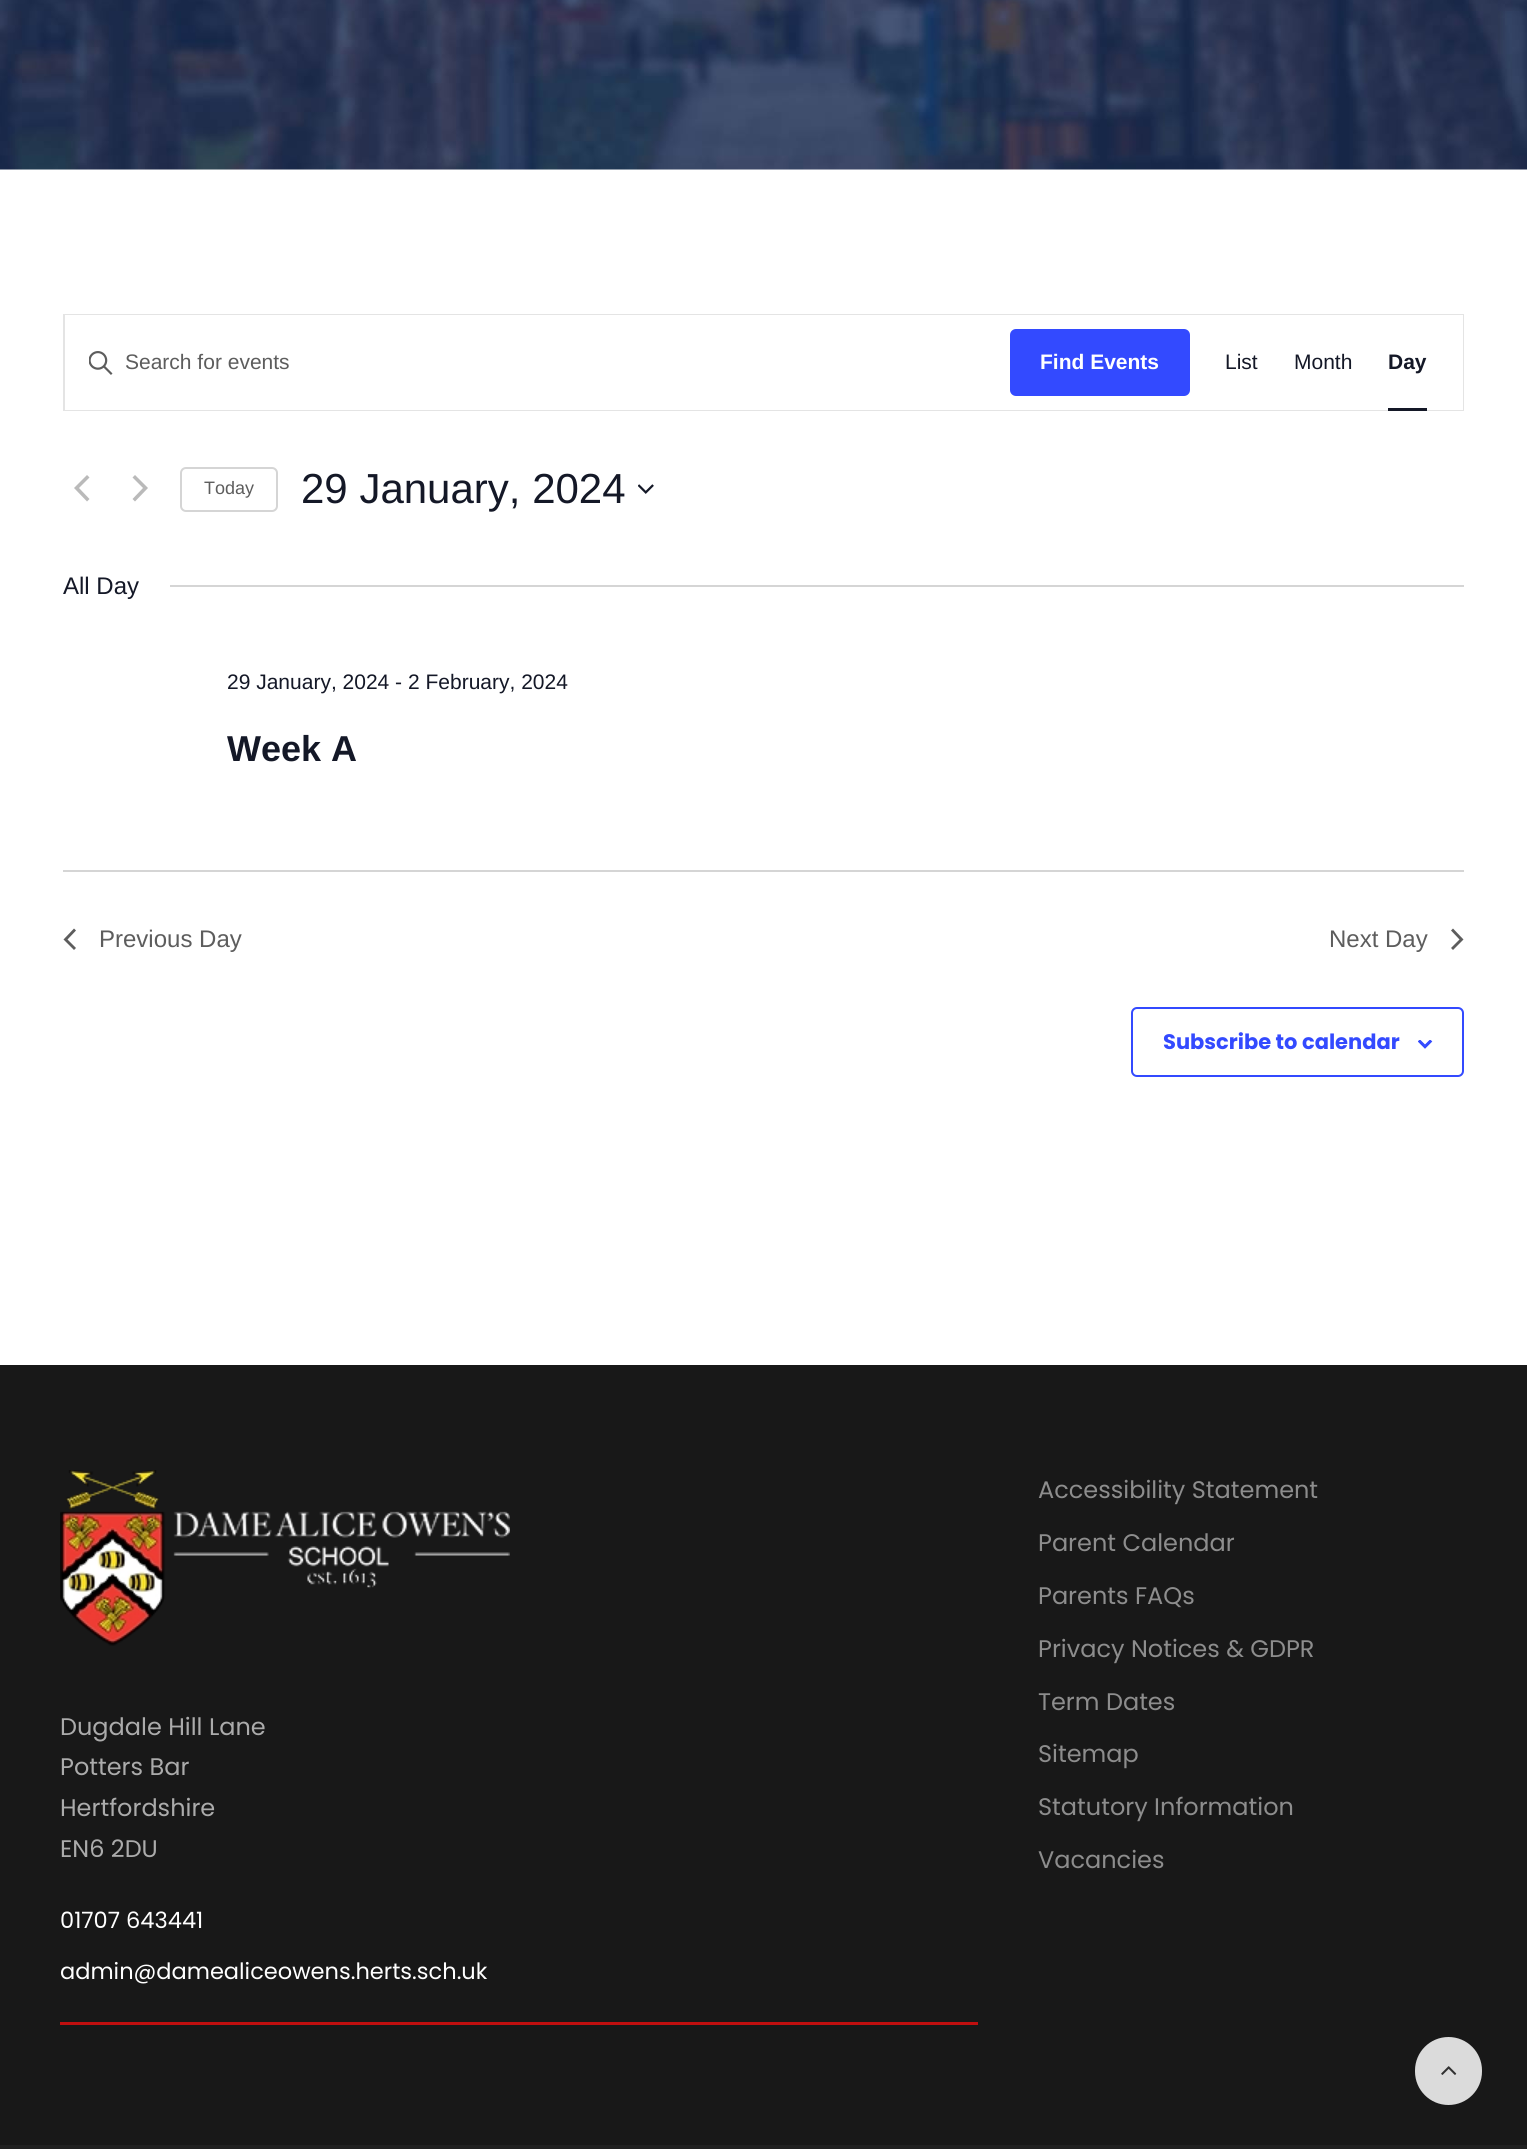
import math
import cairocffi as cairo

surface = cairo.ImageSurface(cairo.FORMAT_RGB24, 1527, 2149)
ctx = cairo.Context(surface)
options = cairo.FontOptions()
options.set_hint_metrics(cairo.HINT_METRICS_OFF)
options.set_hint_style(cairo.HINT_STYLE_NONE)
ctx.set_font_options(options)
ctx.set_miter_limit(4)


def rgb(r, g, b):
    ctx.set_source_rgb(r / 255, g / 255, b / 255)


def face(family, size, italic, bold):
    ctx.select_font_face(family, cairo.FONT_SLANT_ITALIC if italic else cairo.FONT_SLANT_NORMAL, cairo.FONT_WEIGHT_BOLD if bold else cairo.FONT_WEIGHT_NORMAL)
    ctx.set_font_size(size)


def label(x, y, s):
    ctx.move_to(x, y)
    ctx.show_text(s)


def rect(x, y, w, h):
    ctx.rectangle(x, y, w, h)
    ctx.fill()


def rrect(x, y, w, h, r):
    ctx.new_sub_path()
    for i, (u, v) in enumerate([(x + w - r, y + h - r), (x + r, y + h - r), (x + r, y + r), (x + w - r, y + r)]):
        ctx.arc(u, v, r, i * math.pi / 2, (i + 1) * math.pi / 2)
    ctx.close_path()


def image(path, x, y, w, h):
    ctx.save()
    ctx.set_source_surface(cairo.ImageSurface.create_from_png(path), x, y)
    ctx.rectangle(x, y, w, h)
    ctx.fill()
    ctx.restore()


rgb(255, 255, 255)
ctx.paint()
image('image0.png', 0, 0, 1527, 170)
ctx.rectangle(64, 315, 1399, 95)
rgb(228, 228, 228)
ctx.stroke()
rgb(255, 255, 255)
rect(65, 315, 1398, 95)
image('image1.png', 89, 351, 24, 24)
face('Liberation Sans', 21, 0, 0)
rgb(93, 93, 93)
label(125, 369, 'Search for events')
rgb(51, 74, 255)
rrect(1010, 329, 180, 67, 6)
ctx.fill()
face('Liberation Sans', 21, 0, 1)
rgb(255, 255, 255)
label(1040, 369, 'Find Events')
face('Liberation Sans', 21, 0, 0)
rgb(20, 24, 39)
label(1225, 369, 'List')
label(1294, 369, 'Month')
face('Liberation Sans', 21, 0, 1)
label(1388, 369, 'Day')
rect(1388, 408, 39, 3)
rgb(186, 186, 186)
ctx.new_path()
ctx.move_to(89.5, 499)
ctx.line_to(87, 501.5)
ctx.line_to(74, 488)
ctx.line_to(87, 475)
ctx.line_to(89.5, 477.5)
ctx.line_to(79, 488)
ctx.close_path()
ctx.fill()
ctx.new_path()
ctx.move_to(132.5, 477.5)
ctx.line_to(135, 475)
ctx.line_to(148, 488)
ctx.line_to(135, 501.5)
ctx.line_to(132.5, 499)
ctx.line_to(143, 488)
ctx.close_path()
ctx.fill()
rrect(181, 468, 96, 43, 5)
rgb(213, 213, 213)
ctx.stroke()
face('Liberation Sans', 18, 0, 0)
rgb(93, 93, 93)
label(204, 494, 'Today')
face('Liberation Sans', 42, 0, 0)
rgb(20, 24, 39)
label(301, 503, '29 January, 2024')
image('image2.png', 638, 484, 16, 10)
face('Liberation Sans', 24, 0, 0)
label(63, 594, 'All Day')
rgb(213, 213, 213)
rect(170, 585, 1294, 2)
face('Liberation Sans', 21, 0, 0)
rgb(20, 24, 39)
label(227, 689, '29 January, 2024 - 2 February, 2024')
face('Liberation Sans', 36, 0, 1)
label(227, 761, 'Week A')
rgb(213, 213, 213)
rect(63, 870, 1401, 2)
rgb(93, 93, 93)
ctx.new_path()
ctx.move_to(76, 948)
ctx.line_to(74, 950)
ctx.line_to(63.5, 939.5)
ctx.line_to(74, 928.5)
ctx.line_to(76, 930.5)
ctx.line_to(67.5, 939.5)
ctx.close_path()
ctx.fill()
face('Liberation Sans', 24, 0, 0)
label(99, 947, 'Previous Day')
label(1329, 947, 'Next Day')
ctx.new_path()
ctx.move_to(1451, 930.5)
ctx.line_to(1453, 928.5)
ctx.line_to(1463.5, 939.5)
ctx.line_to(1453, 950)
ctx.line_to(1451, 948)
ctx.line_to(1459.5, 939.5)
ctx.close_path()
ctx.fill()
rrect(1132, 1008, 331, 68, 5)
rgb(51, 74, 255)
ctx.stroke()
face('Poppins', 21, 0, 1)
label(1163, 1049, 'Subscribe to calendar')
image('image3.png', 1418, 1040, 15, 9)
rgb(24, 24, 24)
rect(0, 1365, 1527, 780)
image('image4.png', 60, 1470, 450, 176)
face('Poppins', 24, 0, 0)
rgb(171, 171, 171)
label(60, 1735, 'Dugdale Hill Lane')
label(60, 1775, 'Potters Bar')
label(60, 1816, 'Hertfordshire')
label(60, 1857, 'EN6 2DU')
face('Poppins', 22.5, 0, 0)
rgb(255, 255, 255)
label(60, 1928, '01707 643441')
label(60, 1979, 'admin@damealiceowens.herts.sch.uk')
rgb(191, 15, 15)
rect(60, 2022, 918, 3)
face('Poppins', 24, 0, 0)
rgb(141, 141, 141)
label(1038, 1498, 'Accessibility Statement')
label(1038, 1551, 'Parent Calendar')
label(1038, 1604, 'Parents FAQs')
label(1038, 1657, 'Privacy Notices & GDPR')
label(1038, 1710, 'Term Dates')
label(1038, 1762, 'Sitemap')
label(1038, 1815, 'Statutory Information')
label(1038, 1868, 'Vacancies')
rgb(32, 32, 32)
rect(0, 2145, 1527, 4)
rgb(219, 219, 219)
rrect(1415, 2037, 67, 68, 33.5)
ctx.fill()
image('image5.png', 1441, 2066, 16, 9)
surface.write_to_png('render.png')
